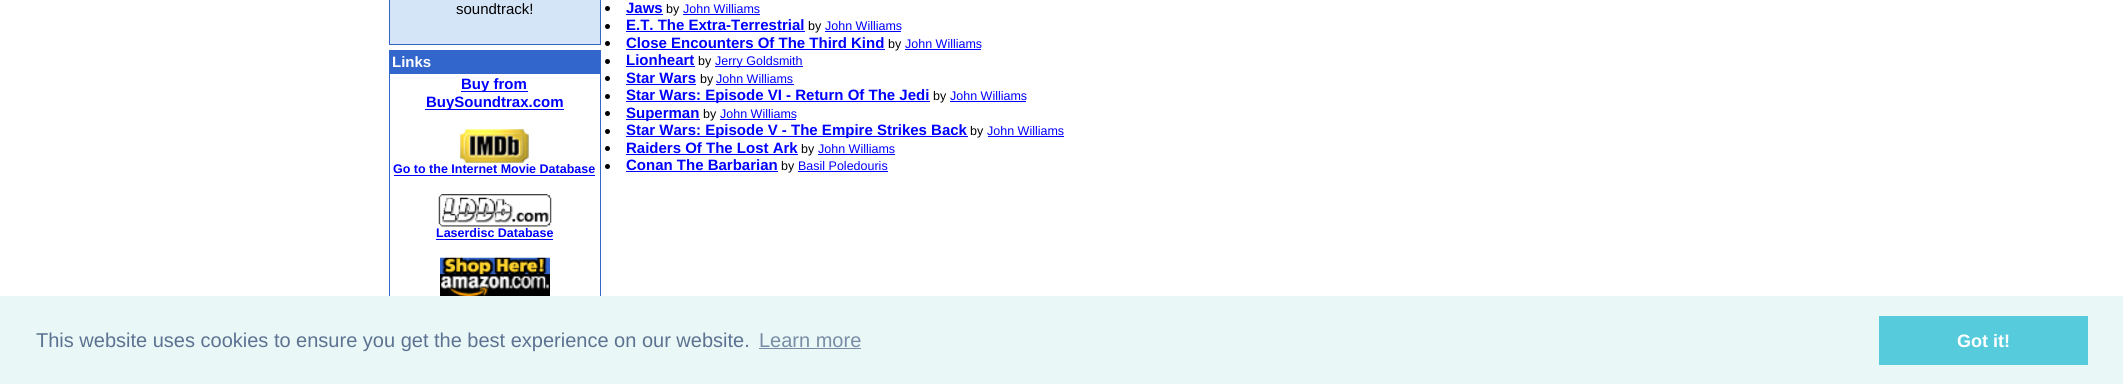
import math
import cairocffi as cairo

surface = cairo.ImageSurface(cairo.FORMAT_RGB24, 2123, 384)
ctx = cairo.Context(surface)
options = cairo.FontOptions()
options.set_hint_metrics(cairo.HINT_METRICS_OFF)
options.set_hint_style(cairo.HINT_STYLE_NONE)
ctx.set_font_options(options)
ctx.set_miter_limit(4)


def rgb(r, g, b):
    ctx.set_source_rgb(r / 255, g / 255, b / 255)


def face(family, size, italic, bold):
    ctx.select_font_face(family, cairo.FONT_SLANT_ITALIC if italic else cairo.FONT_SLANT_NORMAL, cairo.FONT_WEIGHT_BOLD if bold else cairo.FONT_WEIGHT_NORMAL)
    ctx.set_font_size(size)


def label(x, y, s):
    ctx.move_to(x, y)
    ctx.show_text(s)


def rect(x, y, w, h):
    ctx.rectangle(x, y, w, h)
    ctx.fill()


def image(path, x, y, w, h):
    ctx.save()
    ctx.set_source_surface(cairo.ImageSurface.create_from_png(path), x, y)
    ctx.rectangle(x, y, w, h)
    ctx.fill()
    ctx.restore()


rgb(255, 255, 255)
ctx.paint()
rgb(51, 102, 192)
rect(389, 0, 212, 45)
rgb(213, 229, 248)
rect(390, 0, 210, 44)
face('Liberation Sans', 15, 0, 0)
rgb(0, 0, 0)
label(456, 14, 'soundtrack!')
rgb(51, 102, 204)
rect(389, 50, 212, 246)
rgb(255, 255, 255)
rect(390, 74, 210, 222)
face('Liberation Sans', 15, 0, 1)
label(392, 67, 'Links')
rgb(0, 0, 255)
rect(461, 91, 67, 1)
label(461, 89, 'Buy from')
rect(425, 109, 139, 1)
label(426, 107, 'BuySoundtrax.com')
image('image0.png', 460, 129, 69, 34)
face('Liberation Sans', 12.5, 0, 1)
label(393, 173, 'Go to the Internet Movie Database')
rect(394, 175, 201, 1)
image('image1.png', 438, 194, 114, 33)
label(436, 237, 'Laserdisc Database')
rect(436, 239, 117, 1)
image('image2.png', 440, 257, 110, 39)
rgb(0, 0, 0)
ctx.arc(607.5, 8.5, 2.5, 0, 2 * math.pi)
ctx.fill()
face('Liberation Sans', 15, 0, 1)
rgb(0, 0, 255)
label(626, 13, 'Jaws')
rect(626, 14, 37, 1)
face('Liberation Sans', 12.5, 0, 0)
rgb(0, 0, 0)
label(666, 13, 'by')
rgb(0, 0, 255)
label(683, 13, 'John Williams')
rect(683, 14, 77, 1)
rgb(0, 0, 0)
ctx.new_path()
ctx.arc(607.5, 26.5, 2.5, 0, 2 * math.pi)
ctx.fill()
face('Liberation Sans', 15, 0, 1)
rgb(0, 0, 255)
label(626, 30, 'E.T. The Extra-Terrestrial')
rect(626, 31, 179, 1)
face('Liberation Sans', 12.5, 0, 0)
rgb(0, 0, 0)
label(808, 30, 'by')
rgb(0, 0, 255)
label(825, 30, 'John Williams')
rect(825, 31, 76, 1)
rgb(0, 0, 0)
ctx.new_path()
ctx.arc(607.5, 43.5, 2.5, 0, 2 * math.pi)
ctx.fill()
face('Liberation Sans', 15, 0, 1)
rgb(0, 0, 255)
label(626, 48, 'Close Encounters Of The Third Kind')
rect(626, 49, 259, 1)
face('Liberation Sans', 12.5, 0, 0)
rgb(0, 0, 0)
label(888, 48, 'by')
rgb(0, 0, 255)
label(905, 48, 'John Williams')
rect(905, 49, 76, 1)
rgb(0, 0, 0)
ctx.new_path()
ctx.arc(607.5, 61.5, 2.5, 0, 2 * math.pi)
ctx.fill()
face('Liberation Sans', 15, 0, 1)
rgb(0, 0, 255)
label(626, 65, 'Lionheart')
rect(626, 66, 69, 1)
face('Liberation Sans', 12.5, 0, 0)
rgb(0, 0, 0)
label(698, 65, 'by')
rgb(0, 0, 255)
rect(715, 66, 88, 1)
label(715, 65, 'Jerry Goldsmith')
rgb(0, 0, 0)
ctx.new_path()
ctx.arc(607.5, 78.5, 2.5, 0, 2 * math.pi)
ctx.fill()
face('Liberation Sans', 15, 0, 1)
rgb(0, 0, 255)
label(626, 83, 'Star Wars')
rect(626, 84, 70, 1)
face('Liberation Sans', 12.5, 0, 0)
rgb(0, 0, 0)
label(700, 83, 'by')
rgb(0, 0, 255)
label(716, 83, 'John Williams')
rect(716, 84, 78, 1)
rgb(0, 0, 0)
ctx.new_path()
ctx.arc(607.5, 96.5, 2.5, 0, 2 * math.pi)
ctx.fill()
rgb(0, 0, 255)
rect(626, 101, 304, 1)
face('Liberation Sans', 15, 0, 1)
label(626, 100, 'Star Wars: Episode VI - Return Of The Jedi')
face('Liberation Sans', 12.5, 0, 0)
rgb(0, 0, 0)
label(933, 100, 'by')
rgb(0, 0, 255)
label(950, 100, 'John Williams')
rect(950, 101, 76, 1)
rgb(0, 0, 0)
ctx.new_path()
ctx.arc(607.5, 113.5, 2.5, 0, 2 * math.pi)
ctx.fill()
rgb(0, 0, 255)
rect(626, 119, 74, 1)
face('Liberation Sans', 15, 0, 1)
label(626, 118, 'Superman')
face('Liberation Sans', 12.5, 0, 0)
rgb(0, 0, 0)
label(703, 118, 'by')
rgb(0, 0, 255)
label(720, 118, 'John Williams')
rect(720, 119, 76, 1)
rgb(0, 0, 0)
ctx.new_path()
ctx.arc(607.5, 131.5, 2.5, 0, 2 * math.pi)
ctx.fill()
rgb(0, 0, 255)
rect(626, 136, 342, 1)
face('Liberation Sans', 15, 0, 1)
label(626, 135, 'Star Wars: Episode V - The Empire Strikes Back')
face('Liberation Sans', 12.5, 0, 0)
rgb(0, 0, 0)
label(970, 135, 'by')
rgb(0, 0, 255)
label(987, 135, 'John Williams')
rect(988, 136, 76, 1)
rgb(0, 0, 0)
ctx.new_path()
ctx.arc(607.5, 148.5, 2.5, 0, 2 * math.pi)
ctx.fill()
face('Liberation Sans', 15, 0, 1)
rgb(0, 0, 255)
label(626, 153, 'Raiders Of The Lost Ark')
rect(626, 154, 172, 1)
face('Liberation Sans', 12.5, 0, 0)
rgb(0, 0, 0)
label(801, 153, 'by')
rgb(0, 0, 255)
label(818, 153, 'John Williams')
rect(818, 154, 77, 1)
rgb(0, 0, 0)
ctx.new_path()
ctx.arc(607.5, 166.5, 2.5, 0, 2 * math.pi)
ctx.fill()
face('Liberation Sans', 15, 0, 1)
rgb(0, 0, 255)
label(626, 170, 'Conan The Barbarian')
rect(626, 171, 152, 1)
face('Liberation Sans', 12.5, 0, 0)
rgb(0, 0, 0)
label(781, 170, 'by')
rgb(0, 0, 255)
label(798, 170, 'Basil Poledouris')
rect(798, 171, 90, 1)
rgb(234, 247, 247)
rect(0, 296, 2123, 88)
face('Liberation Sans', 20, 0, 0)
rgb(92, 114, 145)
label(36, 347, 'This website uses cookies to ensure you get the best experience on our website.')
rgb(120, 141, 165)
label(759, 347, 'Learn more')
rect(759, 348, 102, 1)
rgb(86, 203, 219)
rect(1879, 316, 209, 49)
face('Liberation Sans', 18, 0, 1)
rgb(255, 255, 255)
label(1957, 347, 'Got it!')
surface.write_to_png('render.png')
